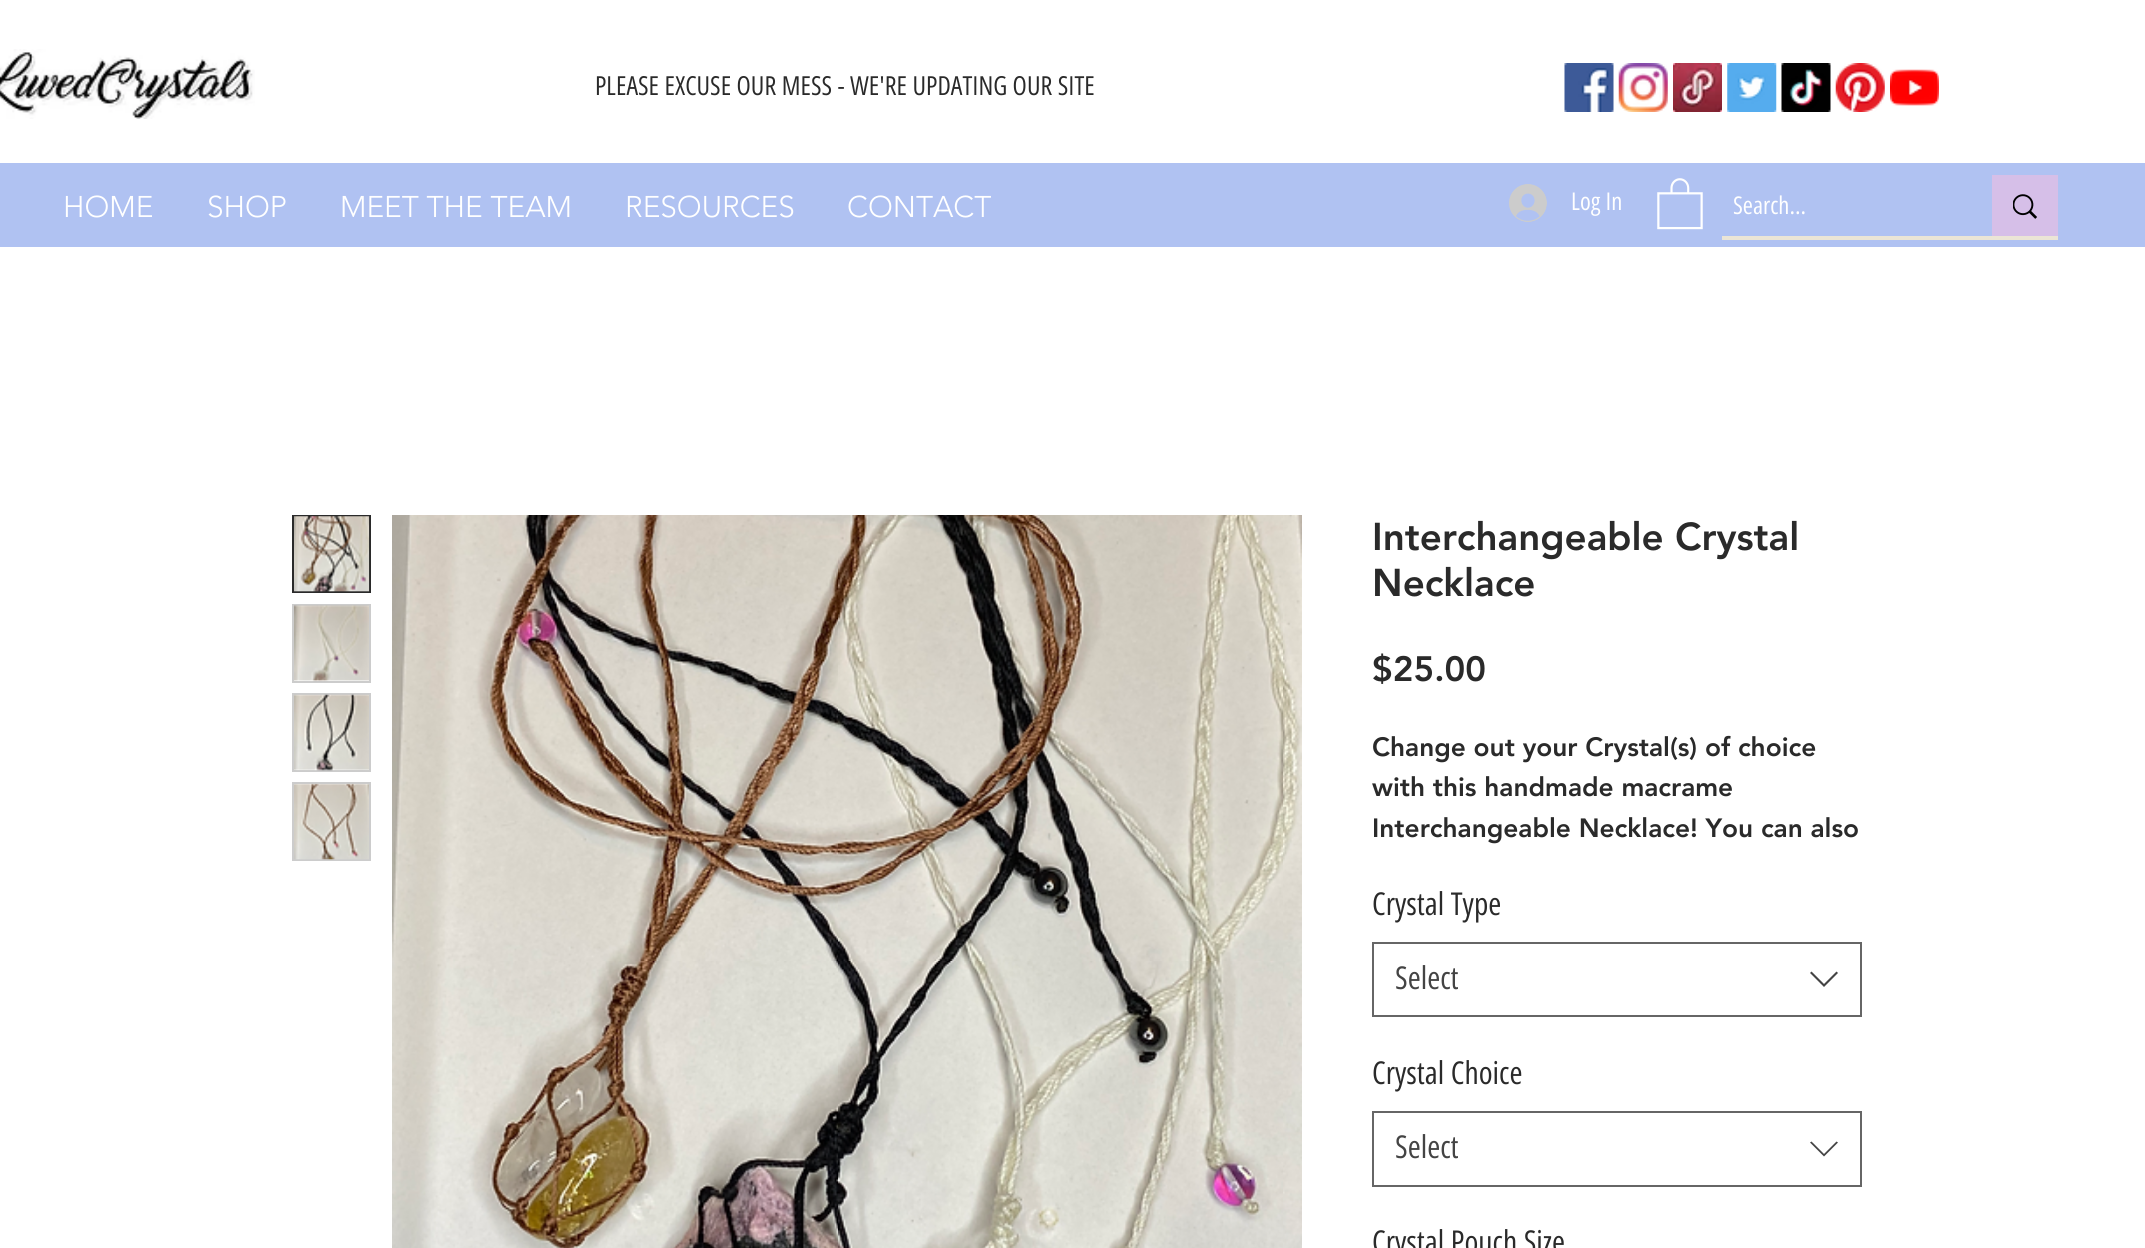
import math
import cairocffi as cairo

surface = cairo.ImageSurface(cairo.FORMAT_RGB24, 2145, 1248)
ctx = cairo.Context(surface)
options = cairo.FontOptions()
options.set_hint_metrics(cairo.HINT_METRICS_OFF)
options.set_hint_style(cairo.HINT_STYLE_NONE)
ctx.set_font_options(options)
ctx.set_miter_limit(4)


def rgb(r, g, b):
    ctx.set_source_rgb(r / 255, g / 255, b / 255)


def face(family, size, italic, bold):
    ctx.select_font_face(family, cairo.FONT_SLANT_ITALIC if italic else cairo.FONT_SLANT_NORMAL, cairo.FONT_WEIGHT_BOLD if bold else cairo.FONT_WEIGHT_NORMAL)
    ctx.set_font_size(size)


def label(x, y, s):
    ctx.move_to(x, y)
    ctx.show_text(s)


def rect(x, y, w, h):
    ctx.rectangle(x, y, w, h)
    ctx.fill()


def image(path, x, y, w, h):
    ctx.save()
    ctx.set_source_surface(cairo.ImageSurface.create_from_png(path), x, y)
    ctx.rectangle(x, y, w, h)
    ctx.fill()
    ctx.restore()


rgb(255, 255, 255)
ctx.paint()
image('image0.png', 0, 49, 255, 70)
face('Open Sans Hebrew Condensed', 26.25, 0, 0)
rgb(42, 42, 42)
label(595, 95, 'PLEASE EXCUSE OUR MESS - WE\'RE UPDATING OUR SITE')
image('image1.png', 1564, 63, 50, 49)
image('image2.png', 1618, 63, 50, 49)
image('image3.png', 1673, 63, 49, 49)
image('image4.png', 1727, 63, 50, 49)
image('image5.png', 1781, 63, 50, 49)
image('image6.png', 1835, 63, 50, 49)
image('image7.png', 1890, 69, 49, 37)
rgb(176, 194, 242)
rect(0, 163, 2145, 84)
face('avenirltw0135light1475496 Light', 29.75, 0, 0)
rgb(255, 255, 255)
label(63, 217, 'HOME')
label(207, 217, 'SHOP')
label(340, 217, 'MEET THE TEAM')
label(625, 217, 'RESOURCES')
label(847, 217, 'CONTACT')
image('image8.png', 1509, 184, 38, 38)
face('Open Sans Hebrew Condensed', 24.5, 0, 0)
label(1571, 210, 'Log In')
image('image9.png', 1657, 178, 46, 52)
rgb(235, 229, 214)
rect(1722, 236, 336, 4)
rgb(255, 255, 255)
label(1733, 214, 'Search...')
rgb(214, 191, 232)
rect(1992, 175, 66, 61)
image('image10.png', 2013, 194, 24, 25)
ctx.rectangle(293, 516, 77, 76)
rgb(42, 42, 42)
ctx.stroke()
image('image11.png', 294, 516, 76, 76)
ctx.rectangle(293, 605, 77, 77)
rgb(204, 204, 204)
ctx.stroke()
image('image12.png', 294, 605, 75, 77)
ctx.rectangle(293, 694, 77, 77)
ctx.stroke()
image('image13.png', 294, 694, 75, 77)
ctx.rectangle(293, 783, 77, 77)
ctx.stroke()
image('image14.png', 294, 783, 75, 77)
image('image15.png', 392, 515, 910, 733)
face('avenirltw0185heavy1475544 Black', 38.5, 0, 0)
rgb(42, 42, 42)
label(1372, 550, 'Interchangeable Crystal')
label(1372, 596, 'Necklace')
face('avenirltw0185heavy1475544 Black', 35, 0, 0)
label(1372, 681, '$25.00')
face('avenirltw0185heavy1475544 Black', 26.25, 0, 0)
label(1372, 756, 'Change out your Crystal(s) of choice')
label(1372, 796, 'with this handmade macrame')
label(1372, 837, 'Interchangeable Necklace! You can also')
face('Open Sans Hebrew Condensed', 31.5, 0, 0)
label(1372, 915, 'Crystal Type')
ctx.rectangle(1373, 943, 488, 73)
rgb(102, 102, 102)
ctx.stroke()
rgb(68, 68, 68)
label(1395, 989, 'Select')
ctx.set_fill_rule(cairo.FILL_RULE_EVEN_ODD)
ctx.new_path()
ctx.move_to(1836.5, 971.5)
ctx.line_to(1838, 973)
ctx.line_to(1824, 987)
ctx.line_to(1810, 973)
ctx.line_to(1811.5, 971.5)
ctx.line_to(1824, 984)
ctx.close_path()
ctx.fill()
rgb(42, 42, 42)
label(1372, 1084, 'Crystal Choice')
ctx.rectangle(1373, 1112, 488, 74)
rgb(102, 102, 102)
ctx.stroke()
rgb(68, 68, 68)
label(1395, 1158, 'Select')
ctx.new_path()
ctx.move_to(1836.5, 1141.5)
ctx.line_to(1838, 1142.5)
ctx.line_to(1824, 1156.5)
ctx.line_to(1810, 1142.5)
ctx.line_to(1811.5, 1141.5)
ctx.line_to(1824, 1154)
ctx.close_path()
ctx.fill()
rgb(42, 42, 42)
label(1372, 1253, 'Crystal Pouch Size')
surface.write_to_png('render.png')
